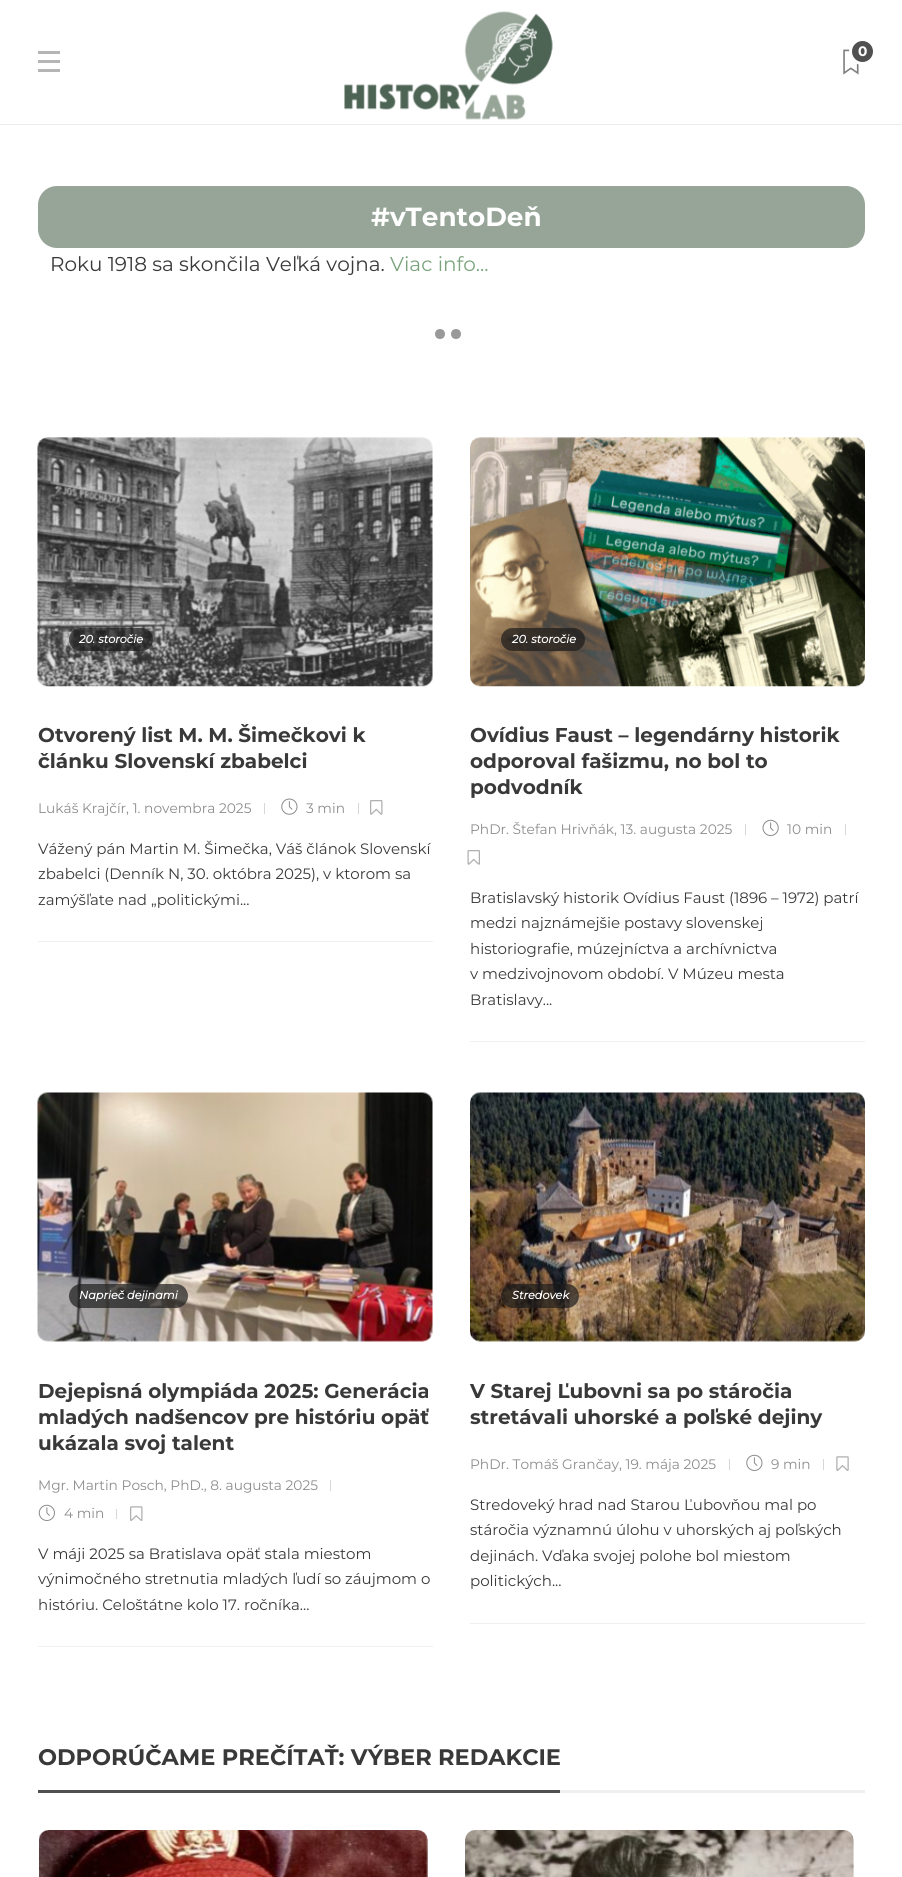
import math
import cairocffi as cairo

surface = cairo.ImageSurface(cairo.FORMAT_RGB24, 902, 1877)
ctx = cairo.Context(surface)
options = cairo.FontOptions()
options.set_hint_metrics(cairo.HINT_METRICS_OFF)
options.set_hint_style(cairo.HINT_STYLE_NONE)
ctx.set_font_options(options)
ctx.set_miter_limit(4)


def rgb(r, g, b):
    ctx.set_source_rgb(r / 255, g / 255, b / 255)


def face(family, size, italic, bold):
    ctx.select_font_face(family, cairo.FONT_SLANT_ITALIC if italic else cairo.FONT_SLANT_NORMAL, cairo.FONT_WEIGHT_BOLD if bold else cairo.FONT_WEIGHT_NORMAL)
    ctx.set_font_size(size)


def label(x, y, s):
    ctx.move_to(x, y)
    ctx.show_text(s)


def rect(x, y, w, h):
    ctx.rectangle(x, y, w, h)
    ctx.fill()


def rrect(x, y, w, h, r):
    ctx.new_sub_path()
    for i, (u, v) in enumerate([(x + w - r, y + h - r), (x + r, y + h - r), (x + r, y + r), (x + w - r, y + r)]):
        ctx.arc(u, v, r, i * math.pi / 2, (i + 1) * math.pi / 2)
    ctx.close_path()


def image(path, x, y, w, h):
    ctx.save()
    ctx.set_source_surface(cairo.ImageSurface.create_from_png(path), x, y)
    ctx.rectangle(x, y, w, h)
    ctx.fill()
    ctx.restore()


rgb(255, 255, 255)
ctx.paint()
rgb(237, 237, 237)
rect(0, 124, 902, 1)
rgb(181, 181, 181)
rect(38, 51, 22, 3)
rect(38, 60, 22, 3)
rect(38, 69, 22, 3)
image('image0.png', 344, 11, 209, 109)
image('image1.png', 843, 49, 16, 26)
rgb(80, 80, 80)
ctx.arc(862.5, 51.5, 12, 0, 2 * math.pi)
ctx.fill_preserve()
rgb(255, 255, 255)
ctx.set_line_width(3)
ctx.stroke()
face('Montserrat', 13.75, 0, 1)
label(858, 56, '0')
rgb(151, 165, 152)
rrect(39.5, 187.5, 824, 59, 17.5)
ctx.fill_preserve()
ctx.stroke()
face('Montserrat', 26.25, 0, 1)
rgb(255, 255, 255)
label(371, 226, '#vTentoDeň')
face('Montserrat Thin', 20, 0, 0)
rgb(57, 57, 57)
label(50, 271, 'Roku 1918 sa skončila Veľká vojna.')
rgb(124, 165, 126)
label(390, 271, 'Viac info...')
rgb(153, 153, 153)
ctx.new_path()
ctx.arc(440, 334, 5, 0, 2 * math.pi)
ctx.fill()
ctx.arc(456, 334, 5, 0, 2 * math.pi)
ctx.fill()
rgb(240, 240, 240)
rect(38, 941, 395, 1)
image('image2.png', 37, 437, 396, 250)
ctx.set_source_rgba(0.11, 0.11, 0.11, 0.7)
rrect(69, 628, 84, 23, 11.5)
ctx.fill()
face('Montserrat', 11.25, 1, 1)
rgb(255, 255, 255)
label(79, 643, '20. storočie')
face('Montserrat', 20, 0, 1)
rgb(57, 57, 57)
label(38, 742, 'Otvorený list M. M. Šimečkovi k')
label(38, 768, 'článku Slovenskí zbabelci')
face('Montserrat Thin', 13.75, 0, 0)
rgb(141, 141, 141)
label(38, 813, 'Lukáš Krajčír, 1. novembra 2025')
rgb(214, 214, 214)
rect(264, 803, 1, 11)
image('image3.png', 281, 798, 17, 17)
rgb(141, 141, 141)
label(306, 813, '3 min')
rgb(214, 214, 214)
rect(358, 803, 1, 11)
image('image4.png', 370, 800, 13, 15)
face('Montserrat Thin', 15, 0, 0)
rgb(57, 57, 57)
label(38, 854, 'Vážený pán Martin M. Šimečka, Váš článok Slovenskí')
label(38, 879, 'zbabelci (Denník N, 30. októbra 2025), v ktorom sa')
label(38, 905, 'zamýšľate nad „politickými...')
rgb(240, 240, 240)
rect(470, 1041, 395, 1)
image('image5.png', 470, 437, 396, 250)
ctx.set_source_rgba(0.11, 0.11, 0.11, 0.7)
rrect(501, 628, 84, 23, 11.5)
ctx.fill()
face('Montserrat', 11.25, 1, 1)
rgb(255, 255, 255)
label(512, 643, '20. storočie')
face('Montserrat', 20, 0, 1)
rgb(57, 57, 57)
label(470, 742, 'Ovídius Faust – legendárny historik')
label(470, 768, 'odporoval fašizmu, no bol to')
label(470, 794, 'podvodník')
face('Montserrat Thin', 13.75, 0, 0)
rgb(141, 141, 141)
label(470, 834, 'PhDr. Štefan Hrivňák, 13. augusta 2025')
rgb(214, 214, 214)
rect(745, 824, 1, 11)
image('image6.png', 762, 819, 17, 17)
rgb(141, 141, 141)
label(787, 834, '10 min')
rgb(214, 214, 214)
rect(845, 824, 1, 11)
image('image7.png', 467, 850, 13, 15)
face('Montserrat Thin', 15, 0, 0)
rgb(57, 57, 57)
label(470, 903, 'Bratislavský historik Ovídius Faust (1896 – 1972) patrí')
label(470, 928, 'medzi najznámejšie postavy slovenskej')
label(470, 954, 'historiografie, múzejníctva a archívnictva')
label(470, 979, 'v medzivojnovom období. V Múzeu mesta')
label(470, 1005, 'Bratislavy...')
rgb(240, 240, 240)
rect(38, 1646, 395, 1)
image('image8.png', 37, 1092, 396, 250)
ctx.set_source_rgba(0.11, 0.11, 0.11, 0.7)
rrect(69, 1284, 119, 24, 12)
ctx.fill()
face('Montserrat', 11.25, 1, 1)
rgb(255, 255, 255)
label(79, 1299, 'Naprieč dejinami')
face('Montserrat', 20, 0, 1)
rgb(57, 57, 57)
label(38, 1398, 'Dejepisná olympiáda 2025: Generácia')
label(38, 1424, 'mladých nadšencov pre históriu opäť')
label(38, 1450, 'ukázala svoj talent')
face('Montserrat Thin', 13.75, 0, 0)
rgb(141, 141, 141)
label(38, 1490, 'Mgr. Martin Posch, PhD., 8. augusta 2025')
rgb(214, 214, 214)
rect(330, 1480, 1, 11)
image('image9.png', 38, 1504, 17, 17)
rgb(141, 141, 141)
label(64, 1518, '4 min')
rgb(214, 214, 214)
rect(116, 1509, 1, 10)
image('image10.png', 130, 1506, 13, 15)
face('Montserrat Thin', 15, 0, 0)
rgb(57, 57, 57)
label(38, 1559, 'V máji 2025 sa Bratislava opäť stala miestom')
label(38, 1584, 'výnimočného stretnutia mladých ľudí so záujmom o')
label(38, 1610, 'históriu. Celoštátne kolo 17. ročníka...')
rgb(240, 240, 240)
rect(470, 1623, 395, 1)
image('image11.png', 470, 1092, 395, 250)
ctx.set_source_rgba(0.11, 0.11, 0.11, 0.7)
rrect(501, 1284, 78, 24, 12)
ctx.fill()
face('Montserrat', 11.25, 1, 1)
rgb(255, 255, 255)
label(512, 1299, 'Stredovek')
face('Montserrat', 20, 0, 1)
rgb(57, 57, 57)
label(470, 1398, 'V Starej Ľubovni sa po stáročia')
label(470, 1424, 'stretávali uhorské a poľské dejiny')
face('Montserrat Thin', 13.75, 0, 0)
rgb(141, 141, 141)
label(470, 1469, 'PhDr. Tomáš Grančay, 19. mája 2025')
rgb(214, 214, 214)
rect(729, 1459, 1, 11)
image('image12.png', 746, 1454, 17, 17)
rgb(141, 141, 141)
label(771, 1469, '9 min')
rgb(214, 214, 214)
rect(823, 1459, 1, 11)
image('image13.png', 836, 1456, 13, 15)
face('Montserrat Thin', 15, 0, 0)
rgb(57, 57, 57)
label(470, 1510, 'Stredoveký hrad nad Starou Ľubovňou mal po')
label(470, 1535, 'stáročia významnú úlohu v uhorských aj poľských')
label(470, 1561, 'dejinách. Vďaka svojej polohe bol miestom')
label(470, 1586, 'politických...')
rgb(240, 240, 240)
rect(560, 1790, 305, 3)
rgb(80, 80, 80)
rect(38, 1790, 522, 3)
face('Montserrat', 22.5, 0, 1)
rgb(57, 57, 57)
label(38, 1765, 'ODPORÚČAME PREČÍTAŤ: VÝBER REDAKCIE')
image('image14.png', 39, 1830, 389, 47)
image('image15.png', 465, 1830, 389, 47)
surface.write_to_png('render.png')
